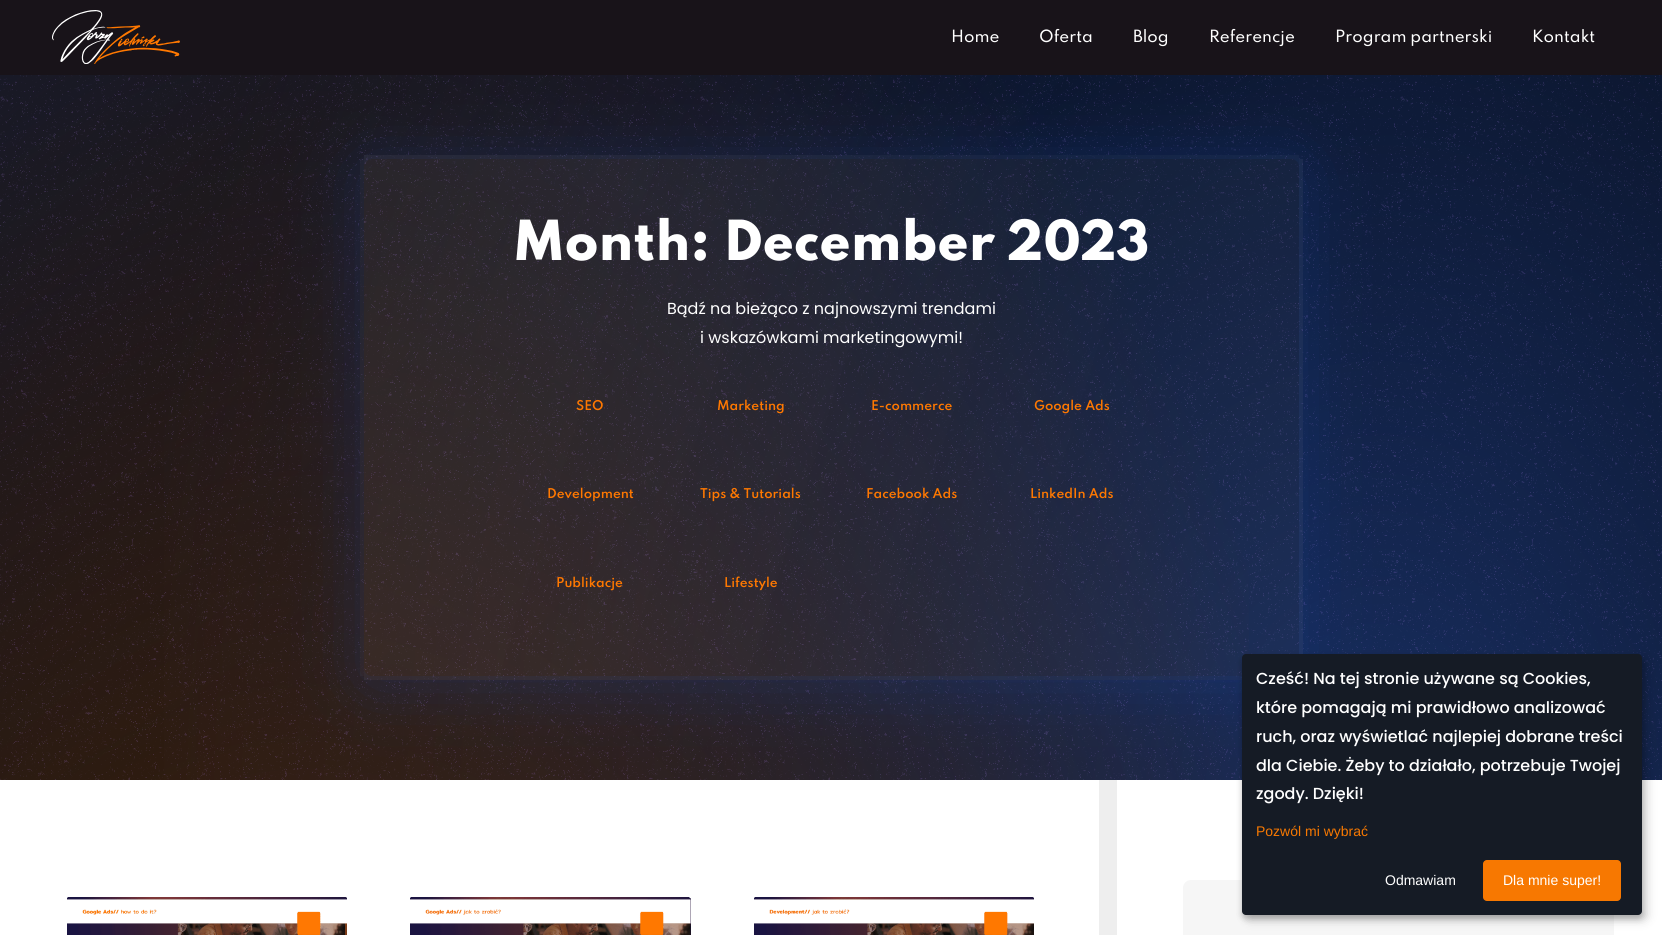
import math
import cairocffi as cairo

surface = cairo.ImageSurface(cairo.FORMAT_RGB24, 1662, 935)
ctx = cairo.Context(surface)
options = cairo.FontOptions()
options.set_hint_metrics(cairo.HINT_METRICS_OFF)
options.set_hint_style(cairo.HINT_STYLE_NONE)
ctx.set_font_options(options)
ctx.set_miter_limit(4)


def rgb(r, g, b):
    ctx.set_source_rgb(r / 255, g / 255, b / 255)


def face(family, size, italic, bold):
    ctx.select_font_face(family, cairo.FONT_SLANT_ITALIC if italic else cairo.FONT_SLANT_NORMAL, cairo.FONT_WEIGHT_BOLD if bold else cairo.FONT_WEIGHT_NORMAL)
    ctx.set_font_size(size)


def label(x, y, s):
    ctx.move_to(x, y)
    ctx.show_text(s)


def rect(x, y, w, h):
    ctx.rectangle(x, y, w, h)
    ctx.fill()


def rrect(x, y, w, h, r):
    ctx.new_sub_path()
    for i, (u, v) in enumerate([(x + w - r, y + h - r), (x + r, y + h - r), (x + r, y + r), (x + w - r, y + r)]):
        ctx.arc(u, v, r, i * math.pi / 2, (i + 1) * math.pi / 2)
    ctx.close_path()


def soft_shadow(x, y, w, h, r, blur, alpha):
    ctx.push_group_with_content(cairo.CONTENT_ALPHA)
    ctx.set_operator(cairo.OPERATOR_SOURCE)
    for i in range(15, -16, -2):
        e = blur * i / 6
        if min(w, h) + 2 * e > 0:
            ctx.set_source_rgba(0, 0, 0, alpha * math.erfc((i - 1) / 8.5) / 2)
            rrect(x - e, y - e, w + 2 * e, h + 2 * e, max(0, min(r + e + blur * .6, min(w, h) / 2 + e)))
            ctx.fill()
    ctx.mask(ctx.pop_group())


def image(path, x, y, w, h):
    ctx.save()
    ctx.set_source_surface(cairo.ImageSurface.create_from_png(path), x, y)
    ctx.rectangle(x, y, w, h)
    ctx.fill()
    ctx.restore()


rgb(255, 255, 255)
ctx.paint()
gradient = cairo.RadialGradient(0, 0, 0, 0, 0, 1)
gradient.set_matrix(cairo.Matrix(1 / 3526, 0, 0, 1 / 5388, -1 * -415 / 3526, -1 * -1306 / 5388))
gradient.add_color_stop_rgba(0, 0.094, 0.18, 0.376, 1)
gradient.add_color_stop_rgba(0.5, 0, 0, 0, 1)
ctx.set_source(gradient)
rect(0, 75, 1662, 705)
gradient = cairo.RadialGradient(0, 0, 0, 0, 0, 1)
gradient.set_matrix(cairo.Matrix(1 / 2542, 0, 0, 1 / 3514, -1 * 1382 / 2542, -1 * 834 / 3514))
gradient.add_color_stop_rgba(0, 0.094, 0.18, 0.376, 1)
gradient.add_color_stop_rgba(0.5, 0.094, 0.18, 0.376, 0)
ctx.set_source(gradient)
rect(164, 75, 1498, 705)
gradient = cairo.RadialGradient(0, 0, 0, 0, 0, 1)
gradient.set_matrix(cairo.Matrix(1 / 2493, 0, 0, 1 / 5900, -1 * 315 / 2493, -1 * 2521 / 5900))
gradient.add_color_stop_rgba(0, 0.431, 0.224, 0.063, 1)
gradient.add_color_stop_rgba(0.5, 0.431, 0.224, 0.063, 0)
ctx.set_source(gradient)
rect(0, 75, 1249, 705)
image('image1.png', 0, 75, 1662, 705)
gradient = cairo.LinearGradient(0, 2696, 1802, 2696)
gradient.add_color_stop_rgba(0, 1, 1, 1, 1)
gradient.add_color_stop_rgba(0.08, 1, 1, 1, 1)
gradient.add_color_stop_rgba(0.08, 0.933, 0.933, 0.933, 1)
gradient.add_color_stop_rgba(0.08, 1, 1, 1, 1)
gradient.add_color_stop_rgba(0.15, 1, 1, 1, 1)
gradient.add_color_stop_rgba(0.15, 0.933, 0.933, 0.933, 1)
gradient.add_color_stop_rgba(0.15, 1, 1, 1, 1)
gradient.add_color_stop_rgba(0.23, 1, 1, 1, 1)
gradient.add_color_stop_rgba(0.23, 0.933, 0.933, 0.933, 1)
gradient.add_color_stop_rgba(0.23, 1, 1, 1, 1)
gradient.add_color_stop_rgba(0.31, 1, 1, 1, 1)
gradient.add_color_stop_rgba(0.31, 0.933, 0.933, 0.933, 1)
gradient.add_color_stop_rgba(0.31, 1, 1, 1, 1)
gradient.add_color_stop_rgba(0.38, 1, 1, 1, 1)
gradient.add_color_stop_rgba(0.38, 0.933, 0.933, 0.933, 1)
gradient.add_color_stop_rgba(0.38, 1, 1, 1, 1)
gradient.add_color_stop_rgba(0.46, 1, 1, 1, 1)
gradient.add_color_stop_rgba(0.46, 0.933, 0.933, 0.933, 1)
gradient.add_color_stop_rgba(0.46, 1, 1, 1, 1)
gradient.add_color_stop_rgba(0.54, 1, 1, 1, 1)
gradient.add_color_stop_rgba(0.54, 0.933, 0.933, 0.933, 1)
gradient.add_color_stop_rgba(0.54, 1, 1, 1, 1)
gradient.add_color_stop_rgba(0.61, 1, 1, 1, 1)
gradient.add_color_stop_rgba(0.61, 0.933, 0.933, 0.933, 1)
gradient.add_color_stop_rgba(0.62, 0.933, 0.933, 0.933, 1)
gradient.add_color_stop_rgba(0.62, 1, 1, 1, 1)
gradient.add_color_stop_rgba(0.69, 1, 1, 1, 1)
gradient.add_color_stop_rgba(0.69, 0.933, 0.933, 0.933, 1)
gradient.add_color_stop_rgba(0.69, 1, 1, 1, 1)
gradient.add_color_stop_rgba(0.77, 1, 1, 1, 1)
gradient.add_color_stop_rgba(0.77, 0.933, 0.933, 0.933, 1)
gradient.add_color_stop_rgba(0.77, 1, 1, 1, 1)
gradient.add_color_stop_rgba(0.85, 1, 1, 1, 1)
gradient.add_color_stop_rgba(0.85, 0.933, 0.933, 0.933, 1)
gradient.add_color_stop_rgba(0.85, 1, 1, 1, 1)
gradient.add_color_stop_rgba(0.92, 1, 1, 1, 1)
gradient.add_color_stop_rgba(0.92, 0.933, 0.933, 0.933, 1)
gradient.add_color_stop_rgba(0.92, 1, 1, 1, 1)
gradient.add_color_stop_rgba(1, 1, 1, 1, 1)
gradient.add_color_stop_rgba(1, 0.933, 0.933, 0.933, 1)
ctx.set_source(gradient)
rect(1099, 780, 18, 155)
ctx.save()
ctx.set_fill_rule(cairo.FILL_RULE_EVEN_ODD)
ctx.new_path()
ctx.move_to(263, 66)
ctx.line_to(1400, 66)
ctx.line_to(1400, 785)
ctx.line_to(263, 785)
ctx.close_path()
ctx.move_to(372, 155)
ctx.line_to(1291, 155)
ctx.curve_to(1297.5, 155, 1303, 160.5, 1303, 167)
ctx.line_to(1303, 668)
ctx.curve_to(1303, 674.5, 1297.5, 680, 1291, 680)
ctx.line_to(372, 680)
ctx.curve_to(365.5, 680, 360, 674.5, 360, 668)
ctx.line_to(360, 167)
ctx.curve_to(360, 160.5, 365.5, 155, 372, 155)
ctx.close_path()
ctx.clip()
rgb(22, 73, 175)
soft_shadow(360, 163, 943, 525, 12, 32, 0.27)
ctx.restore()
rgb(24, 19, 25)
rect(0, 0, 1662, 75)
image('image0.png', 52, 10, 128, 54)
face('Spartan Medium', 15, 0, 0)
rgb(255, 255, 255)
label(951, 42, 'Home')
label(1039, 42, 'Oferta')
label(1133, 42, 'Blog')
label(1209, 42, 'Referencje')
label(1335, 42, 'Program partnerski')
label(1532, 42, 'Kontakt')
ctx.save()
rrect(360, 155, 943, 525, 12)
ctx.clip()
gradient = cairo.LinearGradient(-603, -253, 396, 54)
gradient.add_color_stop_rgba(0.24, 0.157, 0.149, 0.188, 1)
gradient.add_color_stop_rgba(0.82, 0.137, 0.129, 0.169, 1)
ctx.set_source(gradient)
rect(360, 158, 4, 1)
ctx.restore()
gradient = cairo.LinearGradient(332, -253, 1331, 54)
gradient.add_color_stop_rgba(0.24, 1, 1, 1, 0.05)
gradient.add_color_stop_rgba(0.82, 0.6, 0.6, 0.6, 0.05)
ctx.set_source(gradient)
rect(364, 155, 935, 4)
ctx.save()
rrect(360, 155, 943, 525, 12)
ctx.clip()
gradient = cairo.LinearGradient(1267, -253, 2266, 54)
gradient.add_color_stop_rgba(0.24, 0.145, 0.184, 0.322, 1)
gradient.add_color_stop_rgba(0.82, 0.122, 0.165, 0.302, 1)
ctx.set_source(gradient)
rect(1299, 158, 4, 1)
ctx.restore()
gradient = cairo.LinearGradient(-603, 264, 396, 571)
gradient.add_color_stop_rgba(0.24, 1, 1, 1, 0.05)
gradient.add_color_stop_rgba(0.82, 0.6, 0.6, 0.6, 0.05)
ctx.set_source(gradient)
rect(360, 159, 4, 517)
gradient = cairo.LinearGradient(332, 264, 1331, 571)
gradient.add_color_stop_rgba(0.24, 1, 1, 1, 0.05)
gradient.add_color_stop_rgba(0.82, 0.6, 0.6, 0.6, 0.05)
ctx.set_source(gradient)
rect(364, 159, 935, 517)
gradient = cairo.LinearGradient(1267, 264, 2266, 571)
gradient.add_color_stop_rgba(0.24, 1, 1, 1, 0.05)
gradient.add_color_stop_rgba(0.82, 0.6, 0.6, 0.6, 0.05)
ctx.set_source(gradient)
rect(1299, 159, 4, 495)
gradient = cairo.LinearGradient(332, 781, 1331, 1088)
gradient.add_color_stop_rgba(0.24, 1, 1, 1, 0.05)
gradient.add_color_stop_rgba(0.82, 0.6, 0.6, 0.6, 0.05)
ctx.set_source(gradient)
rect(364, 676, 878, 4)
rrect(362, 157, 939, 521, 10)
ctx.set_source_rgba(0.086, 0.286, 0.686, 0.1)
ctx.set_line_width(4)
ctx.stroke()
face('Spartan ExtraBold', 49, 0, 0)
rgb(255, 255, 255)
label(513, 260, 'Month: December 2023')
face('Poppins', 16, 0, 0)
label(667, 314, 'Bądź na bieżąco z najnowszymi trendami')
label(700, 343, 'i wskazówkami marketingowymi!')
face('Spartan SemiBold', 12, 0, 0)
rgb(255, 120, 0)
label(576, 410, 'SEO')
label(717, 410, 'Marketing')
label(871, 410, 'E-commerce')
label(1034, 410, 'Google Ads')
label(547, 498, 'Development')
label(700, 498, 'Tips & Tutorials')
label(866, 498, 'Facebook Ads')
label(1030, 498, 'LinkedIn Ads')
label(556, 587, 'Publikacje')
label(724, 587, 'Lifestyle')
image('image2.png', 67, 897, 280, 38)
image('image3.png', 410, 897, 281, 38)
image('image4.png', 754, 897, 280, 38)
rgb(246, 246, 246)
rrect(1183, 880, 431, 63, 8)
ctx.fill()
rgb(0, 0, 0)
soft_shadow(1247, 659, 400, 261, 4, 5, 0.19)
soft_shadow(1242, 658, 400, 261, 4, 3, 0.2)
rgb(21, 27, 37)
rrect(1242, 654, 400, 261, 4)
ctx.fill()
face('Poppins Medium', 16, 0, 0)
rgb(255, 255, 255)
label(1256, 684, 'Cześć! Na tej stronie używane są Cookies,')
label(1256, 713, 'które pomagają mi prawidłowo analizować')
label(1256, 742, 'ruch, oraz wyświetlać najlepiej dobrane treści')
label(1256, 771, 'dla Ciebie. Żeby to działało, potrzebuje Twojej')
label(1256, 799, 'zgody. Dzięki!')
face('Liberation Sans', 14, 0, 0)
rgb(247, 120, 1)
label(1256, 836, 'Pozwól mi wybrać')
rgb(255, 255, 255)
label(1385, 885, 'Odmawiam')
rgb(247, 120, 1)
rrect(1483, 860, 138, 41, 4)
ctx.fill()
rgb(255, 255, 255)
label(1503, 885, 'Dla mnie super!')
surface.write_to_png('render.png')
